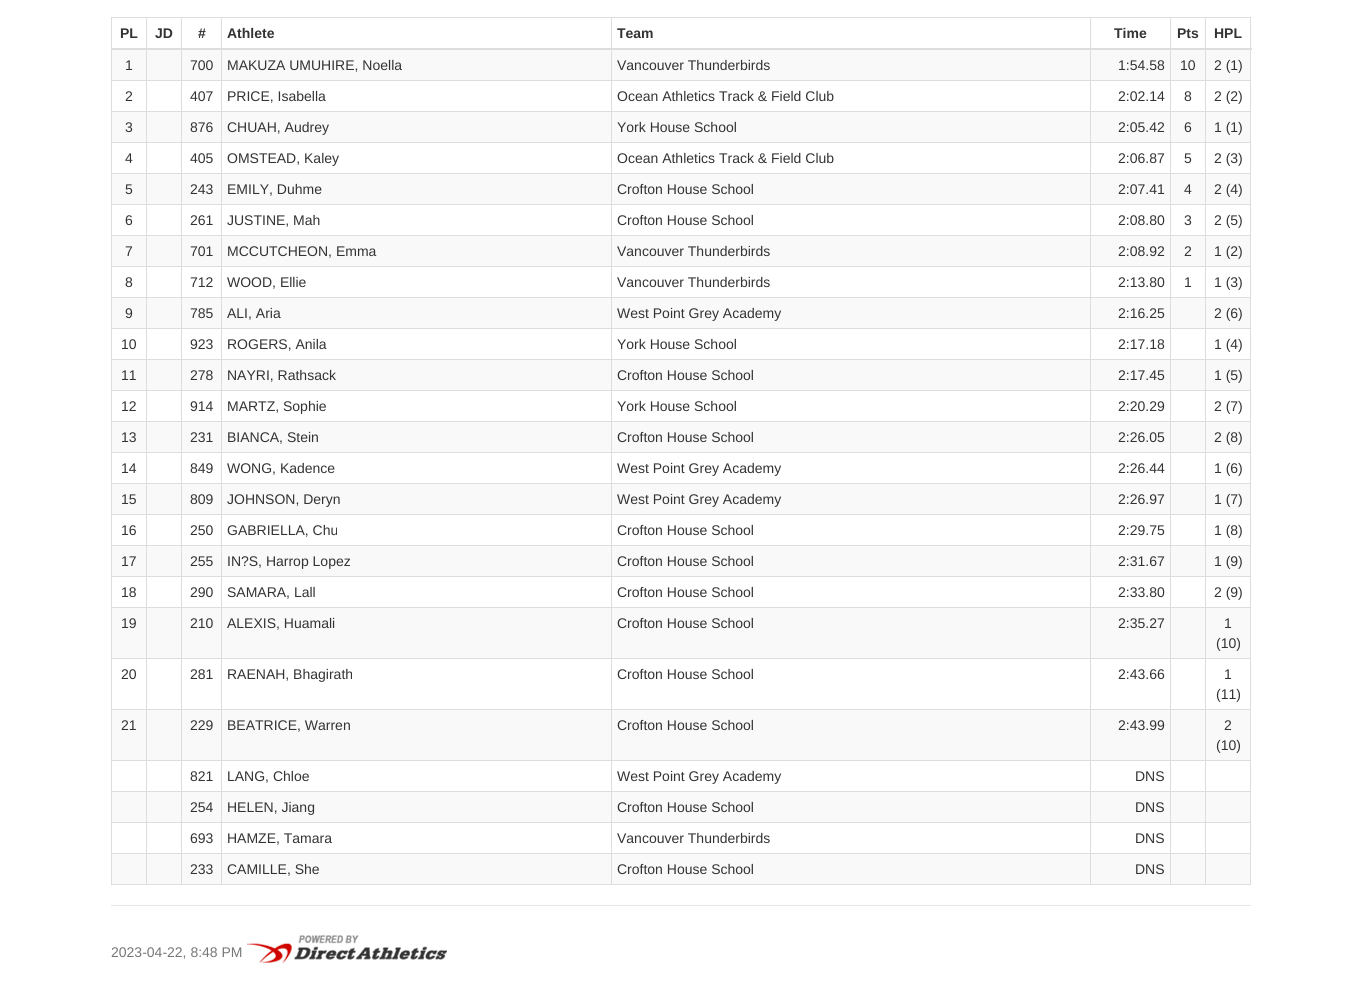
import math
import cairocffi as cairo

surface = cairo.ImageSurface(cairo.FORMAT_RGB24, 1362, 1001)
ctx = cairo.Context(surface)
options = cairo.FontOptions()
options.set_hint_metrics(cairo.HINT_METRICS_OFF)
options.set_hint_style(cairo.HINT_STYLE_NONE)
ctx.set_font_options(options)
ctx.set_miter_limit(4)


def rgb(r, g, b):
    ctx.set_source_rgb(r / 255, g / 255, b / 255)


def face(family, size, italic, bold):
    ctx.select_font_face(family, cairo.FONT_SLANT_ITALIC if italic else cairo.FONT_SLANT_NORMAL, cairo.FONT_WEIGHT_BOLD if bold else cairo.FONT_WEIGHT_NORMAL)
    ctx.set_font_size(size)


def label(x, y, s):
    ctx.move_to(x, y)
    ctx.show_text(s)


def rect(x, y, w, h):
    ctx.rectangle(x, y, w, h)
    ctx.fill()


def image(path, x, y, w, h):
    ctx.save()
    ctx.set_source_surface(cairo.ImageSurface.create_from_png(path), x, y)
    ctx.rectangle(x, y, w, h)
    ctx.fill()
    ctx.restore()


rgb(255, 255, 255)
ctx.paint()
rgb(221, 221, 221)
rect(111, 17, 1140, 1)
rect(1250, 17, 1, 868)
rect(111, 884, 1140, 1)
rect(111, 17, 1, 868)
face('Liberation Sans', 14, 0, 1)
rgb(51, 51, 51)
label(120, 38, 'PL')
label(155, 38, 'JD')
label(198, 38, '#')
label(227, 38, 'Athlete')
label(617, 38, 'Team')
label(1114, 38, 'Time')
label(1177, 38, 'Pts')
rgb(221, 221, 221)
rect(1205, 80, 46, 1)
rect(1205, 111, 46, 1)
rect(1205, 142, 46, 1)
rect(1205, 173, 46, 1)
rect(1205, 204, 46, 1)
rect(1205, 235, 46, 1)
rect(1205, 266, 46, 1)
rect(1205, 297, 46, 1)
rect(1205, 328, 46, 1)
rect(1205, 359, 46, 1)
rect(1205, 390, 46, 1)
rect(1205, 421, 46, 1)
rect(1205, 452, 46, 1)
rect(1205, 483, 46, 1)
rect(1205, 514, 46, 1)
rect(1205, 545, 46, 1)
rect(1205, 576, 46, 1)
rect(1205, 607, 46, 1)
rect(1205, 658, 46, 1)
rect(1205, 709, 46, 1)
rect(1205, 760, 46, 1)
rect(1205, 791, 46, 1)
rect(1205, 822, 46, 1)
rect(1205, 853, 46, 1)
rect(1205, 853, 1, 32)
rect(1170, 853, 36, 1)
rect(1205, 822, 1, 32)
rect(1170, 822, 36, 1)
rect(1205, 791, 1, 32)
rect(1170, 791, 36, 1)
rect(1205, 760, 1, 32)
rect(1170, 760, 36, 1)
rect(1205, 709, 1, 52)
rect(1170, 709, 36, 1)
rect(1205, 658, 1, 52)
rect(1170, 658, 36, 1)
rect(1205, 607, 1, 52)
rect(1170, 607, 36, 1)
rect(1205, 576, 1, 32)
rect(1170, 576, 36, 1)
rect(1205, 545, 1, 32)
rect(1170, 545, 36, 1)
rect(1205, 514, 1, 32)
rect(1170, 514, 36, 1)
rect(1205, 483, 1, 32)
rect(1170, 483, 36, 1)
rect(1205, 452, 1, 32)
rect(1170, 452, 36, 1)
rect(1205, 421, 1, 32)
rect(1170, 421, 36, 1)
rect(1205, 390, 1, 32)
rect(1170, 390, 36, 1)
rect(1205, 359, 1, 32)
rect(1170, 359, 36, 1)
rect(1205, 328, 1, 32)
rect(1170, 328, 36, 1)
rect(1205, 297, 1, 32)
rect(1170, 297, 36, 1)
rect(1205, 266, 1, 32)
rect(1170, 266, 36, 1)
rect(1205, 235, 1, 32)
rect(1170, 235, 36, 1)
rect(1205, 204, 1, 32)
rect(1170, 204, 36, 1)
rect(1205, 173, 1, 32)
rect(1170, 173, 36, 1)
rect(1205, 142, 1, 32)
rect(1170, 142, 36, 1)
rect(1205, 111, 1, 32)
rect(1170, 111, 36, 1)
rect(1205, 80, 1, 32)
rect(1170, 80, 36, 1)
rect(1170, 853, 1, 32)
rect(1090, 853, 81, 1)
rect(1170, 822, 1, 32)
rect(1090, 822, 81, 1)
rect(1170, 791, 1, 32)
rect(1090, 791, 81, 1)
rect(1170, 760, 1, 32)
rect(1090, 760, 81, 1)
rect(1170, 709, 1, 52)
rect(1090, 709, 81, 1)
rect(1170, 658, 1, 52)
rect(1090, 658, 81, 1)
rect(1170, 607, 1, 52)
rect(1090, 607, 81, 1)
rect(1170, 576, 1, 32)
rect(1090, 576, 81, 1)
rect(1170, 545, 1, 32)
rect(1090, 545, 81, 1)
rect(1170, 514, 1, 32)
rect(1090, 514, 81, 1)
rect(1170, 483, 1, 32)
rect(1090, 483, 81, 1)
rect(1170, 452, 1, 32)
rect(1090, 452, 81, 1)
rect(1170, 421, 1, 32)
rect(1090, 421, 81, 1)
rect(1170, 390, 1, 32)
rect(1090, 390, 81, 1)
rect(1170, 359, 1, 32)
rect(1090, 359, 81, 1)
rect(1170, 328, 1, 32)
rect(1090, 328, 81, 1)
rect(1170, 297, 1, 32)
rect(1090, 297, 81, 1)
rect(1170, 266, 1, 32)
rect(1090, 266, 81, 1)
rect(1170, 235, 1, 32)
rect(1090, 235, 81, 1)
rect(1170, 204, 1, 32)
rect(1090, 204, 81, 1)
rect(1170, 173, 1, 32)
rect(1090, 173, 81, 1)
rect(1170, 142, 1, 32)
rect(1090, 142, 81, 1)
rect(1170, 111, 1, 32)
rect(1090, 111, 81, 1)
rect(1170, 80, 1, 32)
rect(1090, 80, 81, 1)
rect(1090, 853, 1, 32)
rect(611, 853, 480, 1)
rect(1090, 822, 1, 32)
rect(611, 822, 480, 1)
rect(1090, 791, 1, 32)
rect(611, 791, 480, 1)
rect(1090, 760, 1, 32)
rect(611, 760, 480, 1)
rect(1090, 709, 1, 52)
rect(611, 709, 480, 1)
rect(1090, 658, 1, 52)
rect(611, 658, 480, 1)
rect(1090, 607, 1, 52)
rect(611, 607, 480, 1)
rect(1090, 576, 1, 32)
rect(611, 576, 480, 1)
rect(1090, 545, 1, 32)
rect(611, 545, 480, 1)
rect(1090, 514, 1, 32)
rect(611, 514, 480, 1)
rect(1090, 483, 1, 32)
rect(611, 483, 480, 1)
rect(1090, 452, 1, 32)
rect(611, 452, 480, 1)
rect(1090, 421, 1, 32)
rect(611, 421, 480, 1)
rect(1090, 390, 1, 32)
rect(611, 390, 480, 1)
rect(1090, 359, 1, 32)
rect(611, 359, 480, 1)
rect(1090, 328, 1, 32)
rect(611, 328, 480, 1)
rect(1090, 297, 1, 32)
rect(611, 297, 480, 1)
rect(1090, 266, 1, 32)
rect(611, 266, 480, 1)
rect(1090, 235, 1, 32)
rect(611, 235, 480, 1)
rect(1090, 204, 1, 32)
rect(611, 204, 480, 1)
rect(1090, 173, 1, 32)
rect(611, 173, 480, 1)
rect(1090, 142, 1, 32)
rect(611, 142, 480, 1)
rect(1090, 111, 1, 32)
rect(611, 111, 480, 1)
rect(1090, 80, 1, 32)
rect(611, 80, 480, 1)
rect(611, 853, 1, 32)
rect(221, 853, 391, 1)
rect(611, 822, 1, 32)
rect(221, 822, 391, 1)
rect(611, 791, 1, 32)
rect(221, 791, 391, 1)
rect(611, 760, 1, 32)
rect(221, 760, 391, 1)
rect(611, 709, 1, 52)
rect(221, 709, 391, 1)
rect(611, 658, 1, 52)
rect(221, 658, 391, 1)
rect(611, 607, 1, 52)
rect(221, 607, 391, 1)
rect(611, 576, 1, 32)
rect(221, 576, 391, 1)
rect(611, 545, 1, 32)
rect(221, 545, 391, 1)
rect(611, 514, 1, 32)
rect(221, 514, 391, 1)
rect(611, 483, 1, 32)
rect(221, 483, 391, 1)
rect(611, 452, 1, 32)
rect(221, 452, 391, 1)
rect(611, 421, 1, 32)
rect(221, 421, 391, 1)
rect(611, 390, 1, 32)
rect(221, 390, 391, 1)
rect(611, 359, 1, 32)
rect(221, 359, 391, 1)
rect(611, 328, 1, 32)
rect(221, 328, 391, 1)
rect(611, 297, 1, 32)
rect(221, 297, 391, 1)
rect(611, 266, 1, 32)
rect(221, 266, 391, 1)
rect(611, 235, 1, 32)
rect(221, 235, 391, 1)
rect(611, 204, 1, 32)
rect(221, 204, 391, 1)
rect(611, 173, 1, 32)
rect(221, 173, 391, 1)
rect(611, 142, 1, 32)
rect(221, 142, 391, 1)
rect(611, 111, 1, 32)
rect(221, 111, 391, 1)
rect(611, 80, 1, 32)
rect(221, 80, 391, 1)
rect(221, 853, 1, 32)
rect(181, 853, 41, 1)
rect(221, 822, 1, 32)
rect(181, 822, 41, 1)
rect(221, 791, 1, 32)
rect(181, 791, 41, 1)
rect(221, 760, 1, 32)
rect(181, 760, 41, 1)
rect(221, 709, 1, 52)
rect(181, 709, 41, 1)
rect(221, 658, 1, 52)
rect(181, 658, 41, 1)
rect(221, 607, 1, 52)
rect(181, 607, 41, 1)
rect(221, 576, 1, 32)
rect(181, 576, 41, 1)
rect(221, 545, 1, 32)
rect(181, 545, 41, 1)
rect(221, 514, 1, 32)
rect(181, 514, 41, 1)
rect(221, 483, 1, 32)
rect(181, 483, 41, 1)
rect(221, 452, 1, 32)
rect(181, 452, 41, 1)
rect(221, 421, 1, 32)
rect(181, 421, 41, 1)
rect(221, 390, 1, 32)
rect(181, 390, 41, 1)
rect(221, 359, 1, 32)
rect(181, 359, 41, 1)
rect(221, 328, 1, 32)
rect(181, 328, 41, 1)
rect(221, 297, 1, 32)
rect(181, 297, 41, 1)
rect(221, 266, 1, 32)
rect(181, 266, 41, 1)
rect(221, 235, 1, 32)
rect(181, 235, 41, 1)
rect(221, 204, 1, 32)
rect(181, 204, 41, 1)
rect(221, 173, 1, 32)
rect(181, 173, 41, 1)
rect(221, 142, 1, 32)
rect(181, 142, 41, 1)
rect(221, 111, 1, 32)
rect(181, 111, 41, 1)
rect(221, 80, 1, 32)
rect(181, 80, 41, 1)
rect(181, 853, 1, 32)
rect(146, 853, 36, 1)
rect(181, 822, 1, 32)
rect(146, 822, 36, 1)
rect(181, 791, 1, 32)
rect(146, 791, 36, 1)
rect(181, 760, 1, 32)
rect(146, 760, 36, 1)
rect(181, 709, 1, 52)
rect(146, 709, 36, 1)
rect(181, 658, 1, 52)
rect(146, 658, 36, 1)
rect(181, 607, 1, 52)
rect(146, 607, 36, 1)
rect(181, 576, 1, 32)
rect(146, 576, 36, 1)
rect(181, 545, 1, 32)
rect(146, 545, 36, 1)
rect(181, 514, 1, 32)
rect(146, 514, 36, 1)
rect(181, 483, 1, 32)
rect(146, 483, 36, 1)
rect(181, 452, 1, 32)
rect(146, 452, 36, 1)
rect(181, 421, 1, 32)
rect(146, 421, 36, 1)
rect(181, 390, 1, 32)
rect(146, 390, 36, 1)
rect(181, 359, 1, 32)
rect(146, 359, 36, 1)
rect(181, 328, 1, 32)
rect(146, 328, 36, 1)
rect(181, 297, 1, 32)
rect(146, 297, 36, 1)
rect(181, 266, 1, 32)
rect(146, 266, 36, 1)
rect(181, 235, 1, 32)
rect(146, 235, 36, 1)
rect(181, 204, 1, 32)
rect(146, 204, 36, 1)
rect(181, 173, 1, 32)
rect(146, 173, 36, 1)
rect(181, 142, 1, 32)
rect(146, 142, 36, 1)
rect(181, 111, 1, 32)
rect(146, 111, 36, 1)
rect(181, 80, 1, 32)
rect(146, 80, 36, 1)
rect(146, 853, 1, 32)
rect(111, 853, 36, 1)
rect(146, 822, 1, 32)
rect(111, 822, 36, 1)
rect(146, 791, 1, 32)
rect(111, 791, 36, 1)
rect(146, 760, 1, 32)
rect(111, 760, 36, 1)
rect(146, 709, 1, 52)
rect(111, 709, 36, 1)
rect(146, 658, 1, 52)
rect(111, 658, 36, 1)
rect(146, 607, 1, 52)
rect(111, 607, 36, 1)
rect(146, 576, 1, 32)
rect(111, 576, 36, 1)
rect(146, 545, 1, 32)
rect(111, 545, 36, 1)
rect(146, 514, 1, 32)
rect(111, 514, 36, 1)
rect(146, 483, 1, 32)
rect(111, 483, 36, 1)
rect(146, 452, 1, 32)
rect(111, 452, 36, 1)
rect(146, 421, 1, 32)
rect(111, 421, 36, 1)
rect(146, 390, 1, 32)
rect(111, 390, 36, 1)
rect(146, 359, 1, 32)
rect(111, 359, 36, 1)
rect(146, 328, 1, 32)
rect(111, 328, 36, 1)
rect(146, 297, 1, 32)
rect(111, 297, 36, 1)
rect(146, 266, 1, 32)
rect(111, 266, 36, 1)
rect(146, 235, 1, 32)
rect(111, 235, 36, 1)
rect(146, 204, 1, 32)
rect(111, 204, 36, 1)
rect(146, 173, 1, 32)
rect(111, 173, 36, 1)
rect(146, 142, 1, 32)
rect(111, 142, 36, 1)
rect(146, 111, 1, 32)
rect(111, 111, 36, 1)
rect(146, 80, 1, 32)
rect(111, 80, 36, 1)
rect(146, 17, 1, 64)
rect(181, 17, 1, 64)
rect(221, 17, 1, 64)
rect(611, 17, 1, 64)
rect(1090, 17, 1, 64)
rect(1170, 17, 1, 64)
rect(1205, 17, 1, 64)
rect(111, 48, 1141, 2)
rgb(51, 51, 51)
label(1214, 38, 'HPL')
rgb(249, 249, 249)
rect(112, 50, 34, 30)
face('Liberation Sans', 14, 0, 0)
rgb(51, 51, 51)
label(125, 70, '1')
rgb(249, 249, 249)
rect(147, 50, 34, 30)
rect(182, 50, 39, 30)
rgb(51, 51, 51)
label(190, 70, '700')
rgb(249, 249, 249)
rect(222, 50, 389, 30)
rgb(51, 51, 51)
label(227, 70, 'MAKUZA UMUHIRE, Noella')
rgb(249, 249, 249)
rect(612, 50, 478, 30)
rgb(51, 51, 51)
label(617, 70, 'Vancouver Thunderbirds')
rgb(249, 249, 249)
rect(1091, 50, 79, 30)
rgb(51, 51, 51)
label(1118, 70, '1:54.58')
rgb(249, 249, 249)
rect(1171, 50, 34, 30)
rgb(51, 51, 51)
label(1180, 70, '10')
rgb(249, 249, 249)
rect(1206, 50, 44, 30)
rgb(51, 51, 51)
label(1214, 70, '2 (1)')
label(125, 101, '2')
label(190, 101, '407')
label(227, 101, 'PRICE, Isabella')
label(617, 101, 'Ocean Athletics Track & Field Club')
label(1118, 101, '2:02.14')
label(1184, 101, '8')
label(1214, 101, '2 (2)')
rgb(249, 249, 249)
rect(112, 112, 34, 30)
rgb(51, 51, 51)
label(125, 132, '3')
rgb(249, 249, 249)
rect(147, 112, 34, 30)
rect(182, 112, 39, 30)
rgb(51, 51, 51)
label(190, 132, '876')
rgb(249, 249, 249)
rect(222, 112, 389, 30)
rgb(51, 51, 51)
label(227, 132, 'CHUAH, Audrey')
rgb(249, 249, 249)
rect(612, 112, 478, 30)
rgb(51, 51, 51)
label(617, 132, 'York House School')
rgb(249, 249, 249)
rect(1091, 112, 79, 30)
rgb(51, 51, 51)
label(1118, 132, '2:05.42')
rgb(249, 249, 249)
rect(1171, 112, 34, 30)
rgb(51, 51, 51)
label(1184, 132, '6')
rgb(249, 249, 249)
rect(1206, 112, 44, 30)
rgb(51, 51, 51)
label(1214, 132, '1 (1)')
label(125, 163, '4')
label(190, 163, '405')
label(227, 163, 'OMSTEAD, Kaley')
label(617, 163, 'Ocean Athletics Track & Field Club')
label(1118, 163, '2:06.87')
label(1184, 163, '5')
label(1214, 163, '2 (3)')
rgb(249, 249, 249)
rect(112, 174, 34, 30)
rgb(51, 51, 51)
label(125, 194, '5')
rgb(249, 249, 249)
rect(147, 174, 34, 30)
rect(182, 174, 39, 30)
rgb(51, 51, 51)
label(190, 194, '243')
rgb(249, 249, 249)
rect(222, 174, 389, 30)
rgb(51, 51, 51)
label(227, 194, 'EMILY, Duhme')
rgb(249, 249, 249)
rect(612, 174, 478, 30)
rgb(51, 51, 51)
label(617, 194, 'Crofton House School')
rgb(249, 249, 249)
rect(1091, 174, 79, 30)
rgb(51, 51, 51)
label(1118, 194, '2:07.41')
rgb(249, 249, 249)
rect(1171, 174, 34, 30)
rgb(51, 51, 51)
label(1184, 194, '4')
rgb(249, 249, 249)
rect(1206, 174, 44, 30)
rgb(51, 51, 51)
label(1214, 194, '2 (4)')
label(125, 225, '6')
label(190, 225, '261')
label(227, 225, 'JUSTINE, Mah')
label(617, 225, 'Crofton House School')
label(1118, 225, '2:08.80')
label(1184, 225, '3')
label(1214, 225, '2 (5)')
rgb(249, 249, 249)
rect(112, 236, 34, 30)
rgb(51, 51, 51)
label(125, 256, '7')
rgb(249, 249, 249)
rect(147, 236, 34, 30)
rect(182, 236, 39, 30)
rgb(51, 51, 51)
label(190, 256, '701')
rgb(249, 249, 249)
rect(222, 236, 389, 30)
rgb(51, 51, 51)
label(227, 256, 'MCCUTCHEON, Emma')
rgb(249, 249, 249)
rect(612, 236, 478, 30)
rgb(51, 51, 51)
label(617, 256, 'Vancouver Thunderbirds')
rgb(249, 249, 249)
rect(1091, 236, 79, 30)
rgb(51, 51, 51)
label(1118, 256, '2:08.92')
rgb(249, 249, 249)
rect(1171, 236, 34, 30)
rgb(51, 51, 51)
label(1184, 256, '2')
rgb(249, 249, 249)
rect(1206, 236, 44, 30)
rgb(51, 51, 51)
label(1214, 256, '1 (2)')
label(125, 287, '8')
label(190, 287, '712')
label(227, 287, 'WOOD, Ellie')
label(617, 287, 'Vancouver Thunderbirds')
label(1118, 287, '2:13.80')
label(1184, 287, '1')
label(1214, 287, '1 (3)')
rgb(249, 249, 249)
rect(112, 298, 34, 30)
rgb(51, 51, 51)
label(125, 318, '9')
rgb(249, 249, 249)
rect(147, 298, 34, 30)
rect(182, 298, 39, 30)
rgb(51, 51, 51)
label(190, 318, '785')
rgb(249, 249, 249)
rect(222, 298, 389, 30)
rgb(51, 51, 51)
label(227, 318, 'ALI, Aria')
rgb(249, 249, 249)
rect(612, 298, 478, 30)
rgb(51, 51, 51)
label(617, 318, 'West Point Grey Academy')
rgb(249, 249, 249)
rect(1091, 298, 79, 30)
rgb(51, 51, 51)
label(1118, 318, '2:16.25')
rgb(249, 249, 249)
rect(1171, 298, 34, 30)
rect(1206, 298, 44, 30)
rgb(51, 51, 51)
label(1214, 318, '2 (6)')
label(121, 349, '10')
label(190, 349, '923')
label(227, 349, 'ROGERS, Anila')
label(617, 349, 'York House School')
label(1118, 349, '2:17.18')
label(1214, 349, '1 (4)')
rgb(249, 249, 249)
rect(112, 360, 34, 30)
rgb(51, 51, 51)
label(121, 380, '11')
rgb(249, 249, 249)
rect(147, 360, 34, 30)
rect(182, 360, 39, 30)
rgb(51, 51, 51)
label(190, 380, '278')
rgb(249, 249, 249)
rect(222, 360, 389, 30)
rgb(51, 51, 51)
label(227, 380, 'NAYRI, Rathsack')
rgb(249, 249, 249)
rect(612, 360, 478, 30)
rgb(51, 51, 51)
label(617, 380, 'Crofton House School')
rgb(249, 249, 249)
rect(1091, 360, 79, 30)
rgb(51, 51, 51)
label(1118, 380, '2:17.45')
rgb(249, 249, 249)
rect(1171, 360, 34, 30)
rect(1206, 360, 44, 30)
rgb(51, 51, 51)
label(1214, 380, '1 (5)')
label(121, 411, '12')
label(190, 411, '914')
label(227, 411, 'MARTZ, Sophie')
label(617, 411, 'York House School')
label(1118, 411, '2:20.29')
label(1214, 411, '2 (7)')
rgb(249, 249, 249)
rect(112, 422, 34, 30)
rgb(51, 51, 51)
label(121, 442, '13')
rgb(249, 249, 249)
rect(147, 422, 34, 30)
rect(182, 422, 39, 30)
rgb(51, 51, 51)
label(190, 442, '231')
rgb(249, 249, 249)
rect(222, 422, 389, 30)
rgb(51, 51, 51)
label(227, 442, 'BIANCA, Stein')
rgb(249, 249, 249)
rect(612, 422, 478, 30)
rgb(51, 51, 51)
label(617, 442, 'Crofton House School')
rgb(249, 249, 249)
rect(1091, 422, 79, 30)
rgb(51, 51, 51)
label(1118, 442, '2:26.05')
rgb(249, 249, 249)
rect(1171, 422, 34, 30)
rect(1206, 422, 44, 30)
rgb(51, 51, 51)
label(1214, 442, '2 (8)')
label(121, 473, '14')
label(190, 473, '849')
label(227, 473, 'WONG, Kadence')
label(617, 473, 'West Point Grey Academy')
label(1118, 473, '2:26.44')
label(1214, 473, '1 (6)')
rgb(249, 249, 249)
rect(112, 484, 34, 30)
rgb(51, 51, 51)
label(121, 504, '15')
rgb(249, 249, 249)
rect(147, 484, 34, 30)
rect(182, 484, 39, 30)
rgb(51, 51, 51)
label(190, 504, '809')
rgb(249, 249, 249)
rect(222, 484, 389, 30)
rgb(51, 51, 51)
label(227, 504, 'JOHNSON, Deryn')
rgb(249, 249, 249)
rect(612, 484, 478, 30)
rgb(51, 51, 51)
label(617, 504, 'West Point Grey Academy')
rgb(249, 249, 249)
rect(1091, 484, 79, 30)
rgb(51, 51, 51)
label(1118, 504, '2:26.97')
rgb(249, 249, 249)
rect(1171, 484, 34, 30)
rect(1206, 484, 44, 30)
rgb(51, 51, 51)
label(1214, 504, '1 (7)')
label(121, 535, '16')
label(190, 535, '250')
label(227, 535, 'GABRIELLA, Chu')
label(617, 535, 'Crofton House School')
label(1118, 535, '2:29.75')
label(1214, 535, '1 (8)')
rgb(249, 249, 249)
rect(112, 546, 34, 30)
rgb(51, 51, 51)
label(121, 566, '17')
rgb(249, 249, 249)
rect(147, 546, 34, 30)
rect(182, 546, 39, 30)
rgb(51, 51, 51)
label(190, 566, '255')
rgb(249, 249, 249)
rect(222, 546, 389, 30)
rgb(51, 51, 51)
label(227, 566, 'IN?S, Harrop Lopez')
rgb(249, 249, 249)
rect(612, 546, 478, 30)
rgb(51, 51, 51)
label(617, 566, 'Crofton House School')
rgb(249, 249, 249)
rect(1091, 546, 79, 30)
rgb(51, 51, 51)
label(1118, 566, '2:31.67')
rgb(249, 249, 249)
rect(1171, 546, 34, 30)
rect(1206, 546, 44, 30)
rgb(51, 51, 51)
label(1214, 566, '1 (9)')
label(121, 597, '18')
label(190, 597, '290')
label(227, 597, 'SAMARA, Lall')
label(617, 597, 'Crofton House School')
label(1118, 597, '2:33.80')
label(1214, 597, '2 (9)')
rgb(249, 249, 249)
rect(112, 608, 34, 50)
rgb(51, 51, 51)
label(121, 628, '19')
rgb(249, 249, 249)
rect(147, 608, 34, 50)
rect(182, 608, 39, 50)
rgb(51, 51, 51)
label(190, 628, '210')
rgb(249, 249, 249)
rect(222, 608, 389, 50)
rgb(51, 51, 51)
label(227, 628, 'ALEXIS, Huamali')
rgb(249, 249, 249)
rect(612, 608, 478, 50)
rgb(51, 51, 51)
label(617, 628, 'Crofton House School')
rgb(249, 249, 249)
rect(1091, 608, 79, 50)
rgb(51, 51, 51)
label(1118, 628, '2:35.27')
rgb(249, 249, 249)
rect(1171, 608, 34, 50)
rect(1206, 608, 44, 50)
rgb(51, 51, 51)
label(1224, 628, '1')
label(1216, 648, '(10)')
label(121, 679, '20')
label(190, 679, '281')
label(227, 679, 'RAENAH, Bhagirath')
label(617, 679, 'Crofton House School')
label(1118, 679, '2:43.66')
label(1224, 679, '1')
label(1216, 699, '(11)')
rgb(249, 249, 249)
rect(112, 710, 34, 50)
rgb(51, 51, 51)
label(121, 730, '21')
rgb(249, 249, 249)
rect(147, 710, 34, 50)
rect(182, 710, 39, 50)
rgb(51, 51, 51)
label(190, 730, '229')
rgb(249, 249, 249)
rect(222, 710, 389, 50)
rgb(51, 51, 51)
label(227, 730, 'BEATRICE, Warren')
rgb(249, 249, 249)
rect(612, 710, 478, 50)
rgb(51, 51, 51)
label(617, 730, 'Crofton House School')
rgb(249, 249, 249)
rect(1091, 710, 79, 50)
rgb(51, 51, 51)
label(1118, 730, '2:43.99')
rgb(249, 249, 249)
rect(1171, 710, 34, 50)
rect(1206, 710, 44, 50)
rgb(51, 51, 51)
label(1224, 730, '2')
label(1216, 750, '(10)')
label(190, 781, '821')
label(227, 781, 'LANG, Chloe')
label(617, 781, 'West Point Grey Academy')
label(1135, 781, 'DNS')
rgb(249, 249, 249)
rect(112, 792, 34, 30)
rect(147, 792, 34, 30)
rect(182, 792, 39, 30)
rgb(51, 51, 51)
label(190, 812, '254')
rgb(249, 249, 249)
rect(222, 792, 389, 30)
rgb(51, 51, 51)
label(227, 812, 'HELEN, Jiang')
rgb(249, 249, 249)
rect(612, 792, 478, 30)
rgb(51, 51, 51)
label(617, 812, 'Crofton House School')
rgb(249, 249, 249)
rect(1091, 792, 79, 30)
rgb(51, 51, 51)
label(1135, 812, 'DNS')
rgb(249, 249, 249)
rect(1171, 792, 34, 30)
rect(1206, 792, 44, 30)
rgb(51, 51, 51)
label(190, 843, '693')
label(227, 843, 'HAMZE, Tamara')
label(617, 843, 'Vancouver Thunderbirds')
label(1135, 843, 'DNS')
rgb(249, 249, 249)
rect(112, 854, 34, 30)
rect(147, 854, 34, 30)
rect(182, 854, 39, 30)
rgb(51, 51, 51)
label(190, 874, '233')
rgb(249, 249, 249)
rect(222, 854, 389, 30)
rgb(51, 51, 51)
label(227, 874, 'CAMILLE, She')
rgb(249, 249, 249)
rect(612, 854, 478, 30)
rgb(51, 51, 51)
label(617, 874, 'Crofton House School')
rgb(249, 249, 249)
rect(1091, 854, 79, 30)
rgb(51, 51, 51)
label(1135, 874, 'DNS')
rgb(249, 249, 249)
rect(1171, 854, 34, 30)
rect(1206, 854, 44, 30)
rgb(229, 229, 229)
rect(111, 905, 1140, 1)
rgb(119, 119, 119)
label(111, 957, '2023-04-22, 8:48 PM')
image('image0.png', 247, 935, 200, 30)
surface.write_to_png('render.png')
